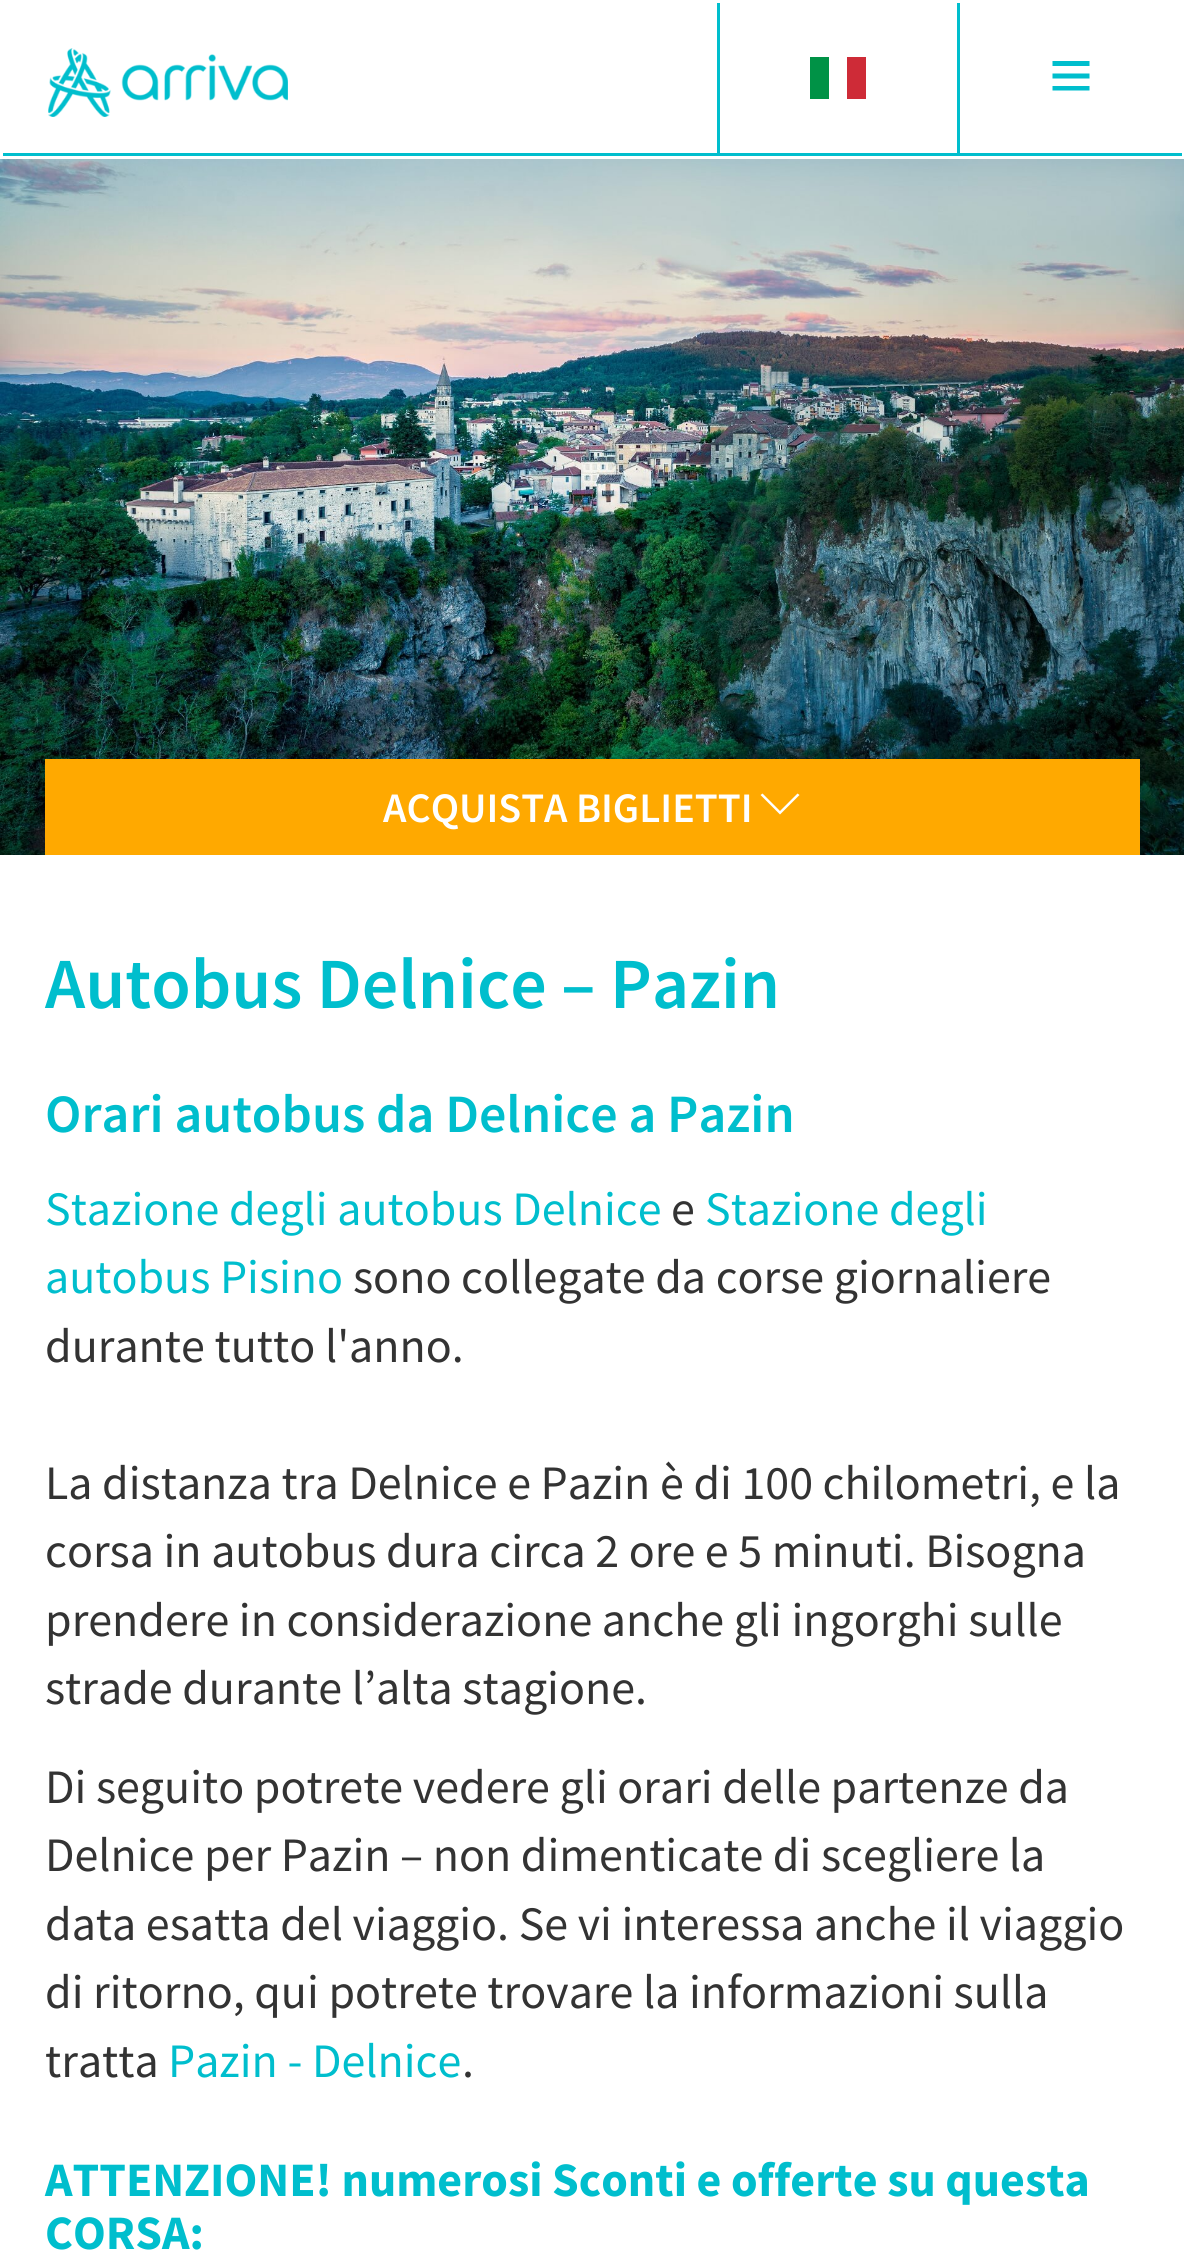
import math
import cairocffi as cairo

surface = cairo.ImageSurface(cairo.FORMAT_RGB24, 1184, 2261)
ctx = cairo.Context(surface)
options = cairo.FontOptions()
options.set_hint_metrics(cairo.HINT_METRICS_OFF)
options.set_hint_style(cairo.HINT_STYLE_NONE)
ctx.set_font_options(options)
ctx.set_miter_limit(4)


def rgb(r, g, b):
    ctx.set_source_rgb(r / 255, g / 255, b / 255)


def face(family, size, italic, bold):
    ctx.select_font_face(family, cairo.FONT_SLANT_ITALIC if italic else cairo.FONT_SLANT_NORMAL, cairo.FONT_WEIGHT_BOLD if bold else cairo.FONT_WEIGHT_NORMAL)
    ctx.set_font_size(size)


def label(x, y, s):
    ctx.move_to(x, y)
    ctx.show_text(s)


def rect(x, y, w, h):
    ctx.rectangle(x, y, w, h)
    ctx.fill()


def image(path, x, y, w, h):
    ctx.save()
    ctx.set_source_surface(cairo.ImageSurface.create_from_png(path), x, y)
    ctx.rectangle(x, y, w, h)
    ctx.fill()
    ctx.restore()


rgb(255, 255, 255)
ctx.paint()
rgb(0, 190, 205)
rect(3, 153, 1179, 3)
image('image0.png', 48, 48, 240, 69)
rect(717, 3, 3, 150)
rgb(0, 146, 70)
rect(810, 57, 19, 42)
rgb(206, 43, 55)
rect(847, 57, 19, 42)
rgb(0, 190, 205)
rect(957, 3, 3, 150)
ctx.new_path()
ctx.move_to(1089.5, 61)
ctx.line_to(1089.5, 66)
ctx.line_to(1052.5, 66)
ctx.line_to(1052.5, 61)
ctx.close_path()
ctx.move_to(1052.5, 78.5)
ctx.line_to(1089.5, 78.5)
ctx.line_to(1089.5, 73.5)
ctx.line_to(1052.5, 73.5)
ctx.close_path()
ctx.move_to(1052.5, 90.5)
ctx.line_to(1089.5, 90.5)
ctx.line_to(1089.5, 86)
ctx.line_to(1052.5, 86)
ctx.close_path()
ctx.fill()
image('image1.png', 0, 159, 1184, 696)
rgb(255, 169, 0)
rect(45, 759, 1095, 96)
face('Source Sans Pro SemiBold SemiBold', 42, 0, 0)
rgb(255, 255, 255)
label(383, 822, 'ACQUISTA BIGLIETTI')
ctx.new_path()
ctx.move_to(799.5, 795)
ctx.line_to(780, 814.5)
ctx.line_to(760.5, 795)
ctx.line_to(762.5, 793.5)
ctx.line_to(780, 811)
ctx.line_to(797.5, 793.5)
ctx.close_path()
ctx.fill()
face('Source Sans Pro SemiBold SemiBold', 72, 0, 0)
rgb(0, 190, 205)
label(45, 1008, 'Autobus Delnice – Pazin')
face('Source Sans Pro SemiBold SemiBold', 54, 0, 0)
label(45, 1132, 'Orari autobus da Delnice a Pazin')
face('Source Sans Pro', 48, 0, 0)
label(45, 1225, 'Stazione degli autobus Delnice')
rgb(51, 51, 51)
label(671, 1225, 'e')
rgb(0, 190, 205)
label(705, 1225, 'Stazione degli')
label(45, 1293, 'autobus Pisino')
rgb(51, 51, 51)
label(353, 1293, 'sono collegate da corse giornaliere')
label(45, 1362, 'durante tutto l\'anno.')
label(45, 1499, 'La distanza tra Delnice e Pazin è di 100 chilometri, e la')
label(45, 1567, 'corsa in autobus dura circa 2 ore e 5 minuti. Bisogna')
label(45, 1636, 'prendere in considerazione anche gli ingorghi sulle')
label(45, 1704, 'strade durante l’alta stagione.')
label(45, 1803, 'Di seguito potrete vedere gli orari delle partenze da')
label(45, 1871, 'Delnice per Pazin – non dimenticate di scegliere la')
label(45, 1940, 'data esatta del viaggio. Se vi interessa anche il viaggio')
label(45, 2008, 'di ritorno, qui potrete trovare la informazioni sulla')
label(45, 2077, 'tratta')
rgb(0, 190, 205)
label(168, 2077, 'Pazin - Delnice')
rgb(51, 51, 51)
label(462, 2077, '.')
face('Source Sans Pro', 48, 0, 1)
rgb(0, 190, 205)
label(45, 2196, 'ATTENZIONE! numerosi Sconti e offerte su questa')
label(45, 2249, 'CORSA:')
surface.write_to_png('render.png')
